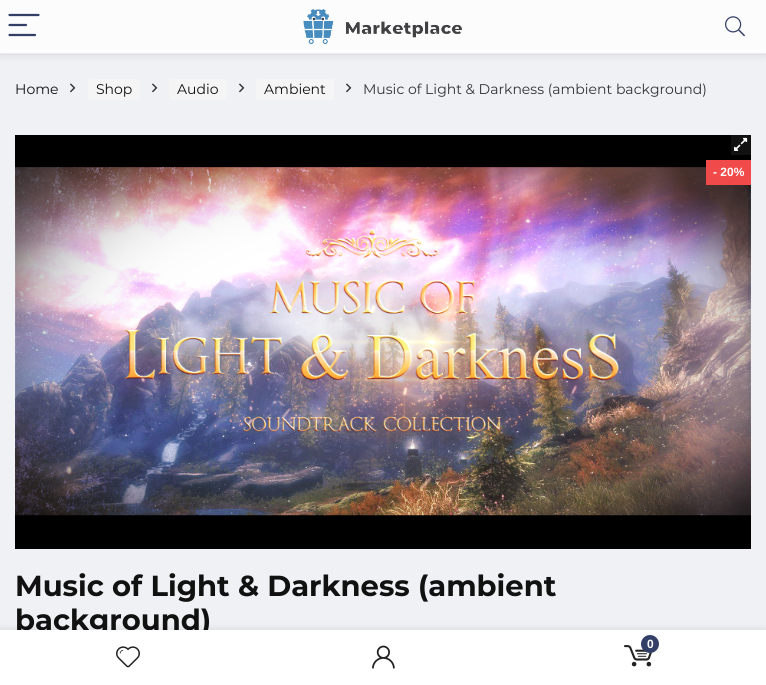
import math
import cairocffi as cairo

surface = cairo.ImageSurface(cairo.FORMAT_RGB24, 766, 685)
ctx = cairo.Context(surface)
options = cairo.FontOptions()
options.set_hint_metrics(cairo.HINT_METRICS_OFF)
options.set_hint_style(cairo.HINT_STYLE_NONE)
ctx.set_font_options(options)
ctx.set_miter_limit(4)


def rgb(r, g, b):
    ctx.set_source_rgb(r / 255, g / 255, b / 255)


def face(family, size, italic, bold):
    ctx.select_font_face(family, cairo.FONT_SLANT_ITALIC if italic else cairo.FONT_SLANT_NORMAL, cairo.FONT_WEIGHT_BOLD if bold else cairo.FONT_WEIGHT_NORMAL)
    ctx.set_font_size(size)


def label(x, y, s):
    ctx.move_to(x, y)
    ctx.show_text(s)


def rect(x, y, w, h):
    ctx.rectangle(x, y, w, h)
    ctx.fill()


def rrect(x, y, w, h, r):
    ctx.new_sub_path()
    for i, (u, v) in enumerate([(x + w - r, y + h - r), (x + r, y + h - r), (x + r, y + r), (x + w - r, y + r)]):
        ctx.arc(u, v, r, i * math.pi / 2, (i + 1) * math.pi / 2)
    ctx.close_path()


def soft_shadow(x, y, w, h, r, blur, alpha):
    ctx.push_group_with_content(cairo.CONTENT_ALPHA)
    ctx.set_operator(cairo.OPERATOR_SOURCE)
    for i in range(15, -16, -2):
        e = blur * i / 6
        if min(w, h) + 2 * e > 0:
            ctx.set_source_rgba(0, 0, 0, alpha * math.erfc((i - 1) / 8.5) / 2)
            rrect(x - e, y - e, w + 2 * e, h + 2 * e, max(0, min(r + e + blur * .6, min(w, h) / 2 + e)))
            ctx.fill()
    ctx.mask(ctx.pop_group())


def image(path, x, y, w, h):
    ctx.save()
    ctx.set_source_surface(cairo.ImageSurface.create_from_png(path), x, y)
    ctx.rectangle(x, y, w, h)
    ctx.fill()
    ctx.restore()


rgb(239, 241, 245)
ctx.paint()
face('Montserrat', 14, 0, 0)
rgb(17, 17, 17)
label(15, 94, 'Home')
image('image0.png', 70, 83, 6, 10)
rgb(245, 245, 245)
rrect(88, 79, 52, 21, 3)
ctx.fill()
rgb(17, 17, 17)
label(96, 94, 'Shop')
image('image0.png', 152, 83, 6, 10)
rgb(245, 245, 245)
rrect(169, 79, 58, 21, 3)
ctx.fill()
rgb(17, 17, 17)
label(177, 94, 'Audio')
image('image0.png', 239, 83, 6, 10)
rgb(245, 245, 245)
rrect(256, 79, 78, 21, 3)
ctx.fill()
rgb(17, 17, 17)
label(264, 94, 'Ambient')
image('image0.png', 346, 83, 6, 10)
rgb(51, 51, 51)
label(363, 94, 'Music of Light & Darkness (ambient background)')
image('image1.png', 15, 135, 736, 414)
rgb(17, 17, 17)
rect(731, 135, 20, 20)
image('image2.png', 734, 137, 14, 14)
rgb(240, 74, 74)
rect(706, 160, 45, 25)
face('Liberation Sans', 12, 0, 1)
rgb(255, 255, 255)
label(713, 176, '- 20%')
face('Montserrat', 29, 0, 1)
rgb(17, 17, 17)
label(15, 596, 'Music of Light & Darkness (ambient')
label(15, 630, 'background)')
ctx.rectangle(-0.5, -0.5, 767, 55)
rgb(232, 234, 238)
ctx.set_line_width(1)
ctx.stroke()
rgb(0, 0, 0)
soft_shadow(0, 1, 766, 54, 0, 4, 0.1)
rgb(252, 252, 252)
rect(0, 0, 766, 53)
rgb(238, 238, 238)
rect(0, 53, 766, 1)
ctx.new_path()
ctx.move_to(9.5, 15)
ctx.line_to(38.5, 15)
ctx.move_to(9.5, 25)
ctx.line_to(26, 25)
ctx.move_to(9.5, 35)
ctx.line_to(35, 35)
rgb(51, 63, 103)
ctx.set_line_width(2.2)
ctx.set_line_cap(cairo.LINE_CAP_ROUND)
ctx.stroke()
image('image3.png', 303, 9, 159, 35)
image('image4.png', 725, 16, 20, 21)
rgb(0, 0, 0)
soft_shadow(0, 630, 766, 55, 0, 4.5, 0.12)
rgb(255, 255, 255)
rect(0, 630, 766, 55)
image('image5.png', 624, 645, 28, 22)
rgb(51, 63, 103)
ctx.arc(650, 644, 9, 0, 2 * math.pi)
ctx.fill()
face('Liberation Sans', 12, 0, 1)
rgb(255, 255, 255)
label(647, 648, '0')
image('image6.png', 116, 646, 24, 22)
image('image7.png', 372, 645, 23, 24)
surface.write_to_png('render.png')
